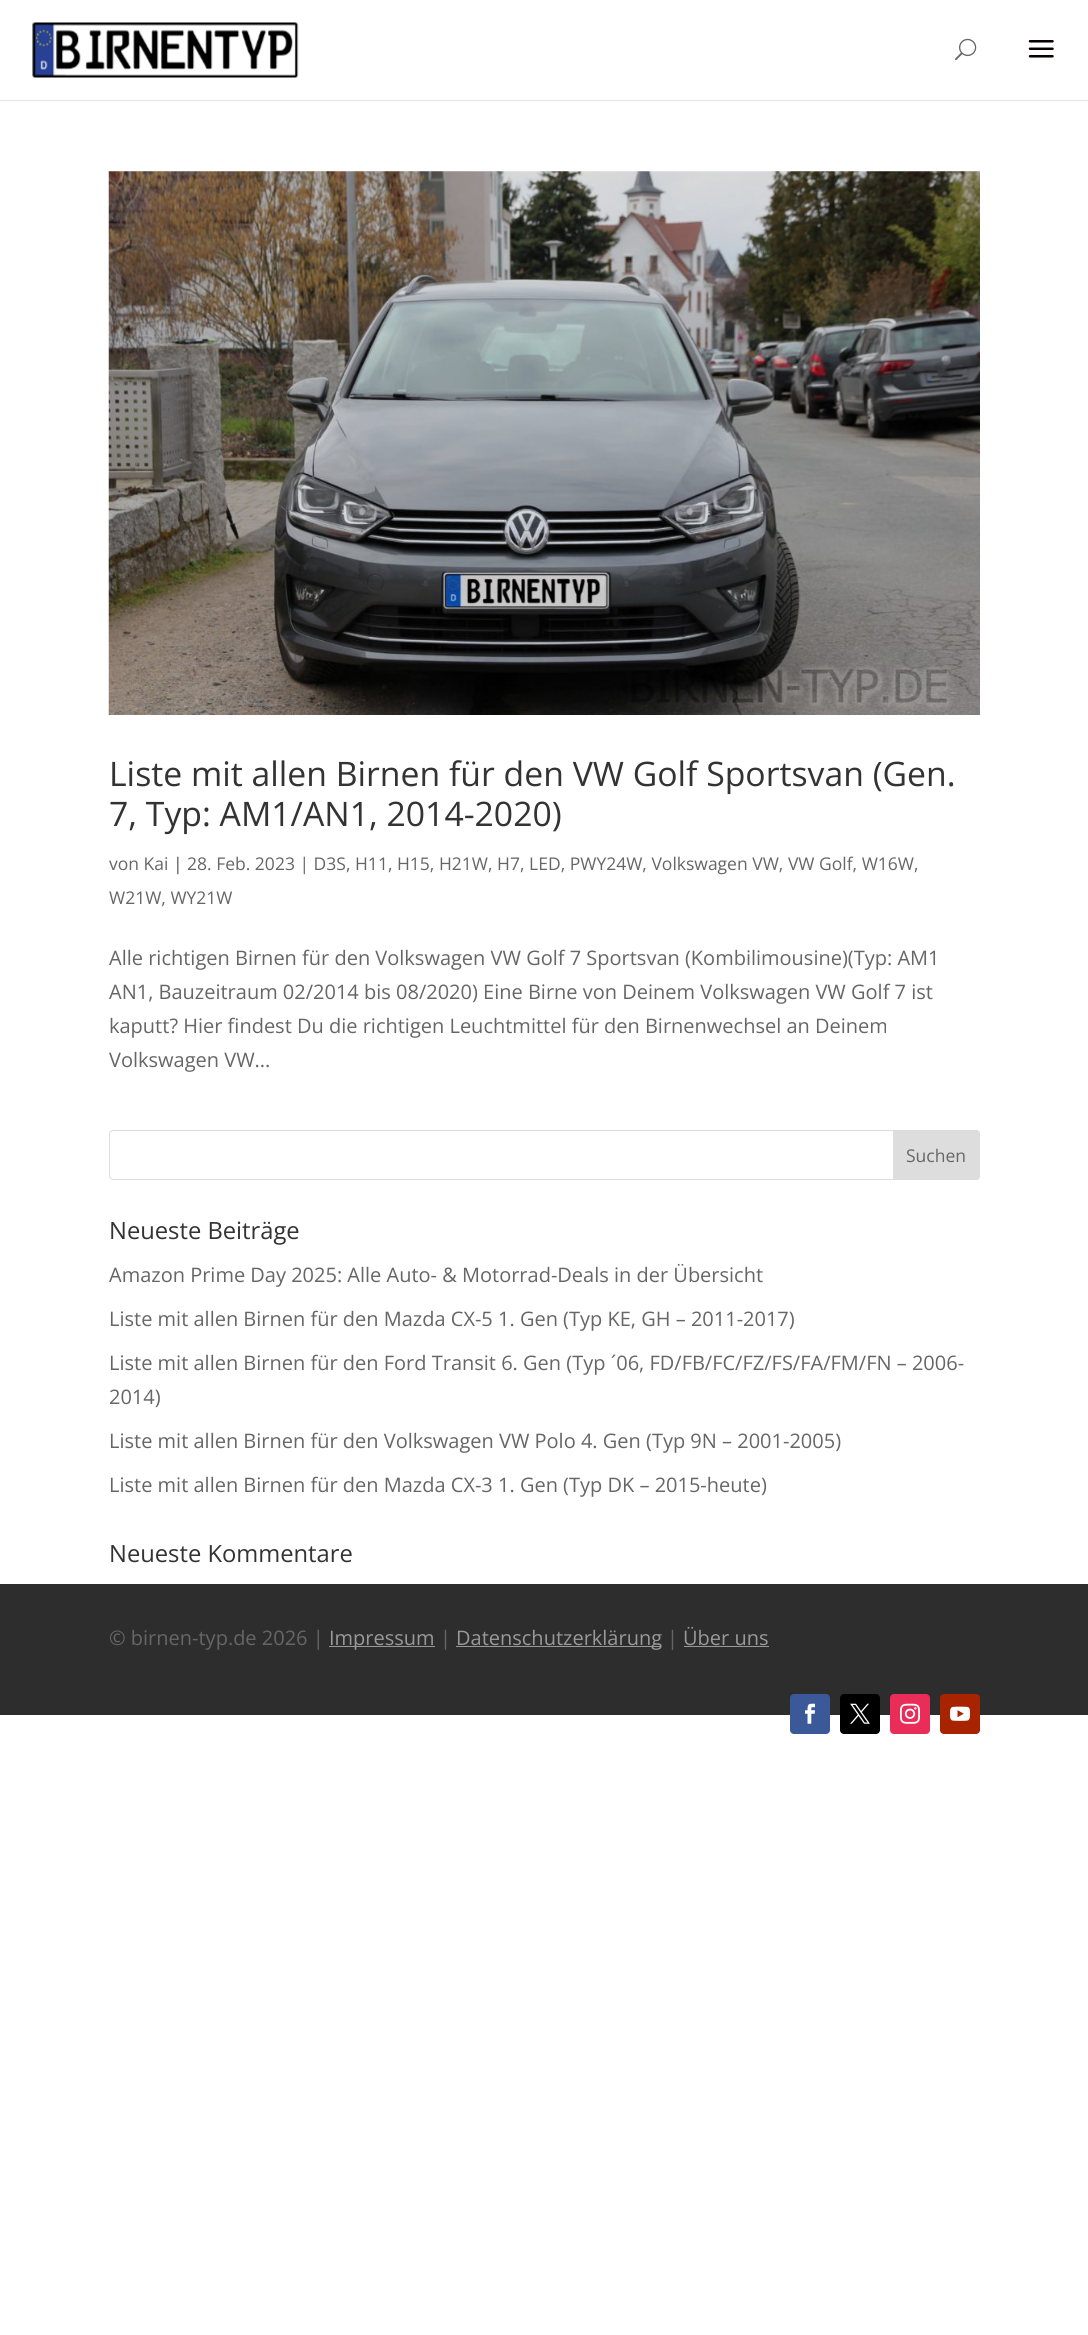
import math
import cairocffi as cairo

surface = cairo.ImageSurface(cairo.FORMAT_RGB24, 1088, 2335)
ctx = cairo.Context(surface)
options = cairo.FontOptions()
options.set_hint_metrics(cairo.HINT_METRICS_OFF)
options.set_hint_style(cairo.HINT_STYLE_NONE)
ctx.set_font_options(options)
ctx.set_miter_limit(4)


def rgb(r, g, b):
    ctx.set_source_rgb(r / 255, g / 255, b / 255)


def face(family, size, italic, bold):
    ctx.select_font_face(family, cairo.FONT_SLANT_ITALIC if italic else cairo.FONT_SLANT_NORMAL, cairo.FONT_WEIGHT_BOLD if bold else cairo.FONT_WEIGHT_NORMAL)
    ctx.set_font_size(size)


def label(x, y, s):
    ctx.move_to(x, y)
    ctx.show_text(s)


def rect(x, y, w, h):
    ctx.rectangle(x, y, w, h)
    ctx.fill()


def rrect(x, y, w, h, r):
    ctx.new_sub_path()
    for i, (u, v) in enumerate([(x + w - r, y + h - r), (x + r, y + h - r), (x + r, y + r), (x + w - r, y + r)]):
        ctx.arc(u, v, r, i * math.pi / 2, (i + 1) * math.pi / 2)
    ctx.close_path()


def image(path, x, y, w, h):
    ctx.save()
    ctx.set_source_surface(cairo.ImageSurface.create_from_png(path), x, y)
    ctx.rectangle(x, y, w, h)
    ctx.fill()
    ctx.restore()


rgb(255, 255, 255)
ctx.paint()
rgb(230, 230, 230)
ctx.new_path()
ctx.move_to(0, 100)
ctx.line_to(0, 101)
ctx.line_to(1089, 101)
ctx.line_to(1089, 1)
ctx.line_to(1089, 100)
ctx.close_path()
ctx.fill()
image('image0.png', 32, 22, 267, 56)
image('image1.png', 955, 38, 22, 23)
image('image2.png', 1028, 40, 26, 18)
image('image3.png', 108, 171, 872, 544)
face('Open Sans', 33.75, 0, 0)
rgb(51, 51, 51)
label(109, 786, 'Liste mit allen Birnen für den VW Golf Sportsvan (Gen.')
label(109, 826, '7, Typ: AM1/AN1, 2014-2020)')
face('Open Sans', 17.5, 0, 0)
rgb(102, 102, 102)
label(109, 870, 'von Kai')
face('Open Sans Medium', 17.5, 0, 0)
label(173, 870, '|')
face('Open Sans', 17.5, 0, 0)
label(187, 870, '28. Feb. 2023 | D3S, H11, H15, H21W, H7, LED, PWY24W, Volkswagen VW, VW Golf, W16W,')
label(109, 904, 'W21W, WY21W')
face('Open Sans', 20, 0, 0)
label(109, 965, 'Alle richtigen Birnen für den Volkswagen VW Golf 7 Sportsvan (Kombilimousine)(Typ: AM1')
label(109, 999, 'AN1, Bauzeitraum 02/2014 bis 08/2020) Eine Birne von Deinem Volkswagen VW Golf 7 ist')
label(109, 1033, 'kaputt? Hier findest Du die richtigen Leuchtmittel für den Birnenwechsel an Deinem')
label(109, 1067, 'Volkswagen VW...')
rrect(109.5, 1130.5, 870, 49, 3.5)
rgb(221, 221, 221)
ctx.set_line_width(1)
ctx.stroke()
ctx.new_path()
ctx.move_to(893.5, 1130.5)
ctx.line_to(976, 1130.5)
ctx.curve_to(978, 1130.5, 979.5, 1132, 979.5, 1134)
ctx.line_to(979.5, 1176)
ctx.curve_to(979.5, 1178, 978, 1179.5, 976, 1179.5)
ctx.line_to(893.5, 1179.5)
ctx.close_path()
ctx.fill_preserve()
ctx.stroke()
face('Open Sans', 17.5, 0, 0)
rgb(102, 102, 102)
label(906, 1162, 'Suchen')
face('Open Sans', 23.75, 0, 0)
rgb(51, 51, 51)
label(109, 1239, 'Neueste Beiträge')
face('Open Sans', 20, 0, 0)
rgb(102, 102, 102)
label(109, 1282, 'Amazon Prime Day 2025: Alle Auto- & Motorrad-Deals in der Übersicht')
label(109, 1326, 'Liste mit allen Birnen für den Mazda CX-5 1. Gen (Typ KE, GH – 2011-2017)')
label(109, 1370, 'Liste mit allen Birnen für den Ford Transit 6. Gen (Typ ´06, FD/FB/FC/FZ/FS/FA/FM/FN – 2006-')
label(109, 1404, '2014)')
label(109, 1448, 'Liste mit allen Birnen für den Volkswagen VW Polo 4. Gen (Typ 9N – 2001-2005)')
label(109, 1492, 'Liste mit allen Birnen für den Mazda CX-3 1. Gen (Typ DK – 2015-heute)')
face('Open Sans', 23.75, 0, 0)
rgb(51, 51, 51)
label(109, 1562, 'Neueste Kommentare')
rgb(45, 45, 45)
rect(0, 1584, 1088, 131)
face('Open Sans', 20, 0, 0)
rgb(102, 102, 102)
label(109, 1645, '© birnen-typ.de 2026 |')
rgb(153, 153, 153)
rect(329, 1646, 106, 1)
label(329, 1645, 'Impressum')
rgb(102, 102, 102)
label(440, 1645, '|')
rgb(153, 153, 153)
rect(456, 1646, 205, 1)
label(456, 1645, 'Datenschutzerklärung')
rgb(102, 102, 102)
label(667, 1645, '|')
rgb(153, 153, 153)
label(683, 1645, 'Über uns')
rect(684, 1646, 85, 1)
rgb(59, 89, 152)
rrect(790, 1694, 40, 40, 4)
ctx.fill()
image('image4.png', 805, 1703, 10, 21)
rgb(0, 0, 0)
rrect(840, 1694, 40, 40, 4)
ctx.fill()
image('image5.png', 850, 1703, 20, 21)
rgb(234, 44, 89)
rrect(890, 1694, 40, 40, 4)
ctx.fill()
image('image6.png', 900, 1703, 20, 21)
rgb(168, 36, 0)
rrect(940, 1694, 40, 40, 4)
ctx.fill()
image('image7.png', 950, 1706, 20, 15)
surface.write_to_png('render.png')
